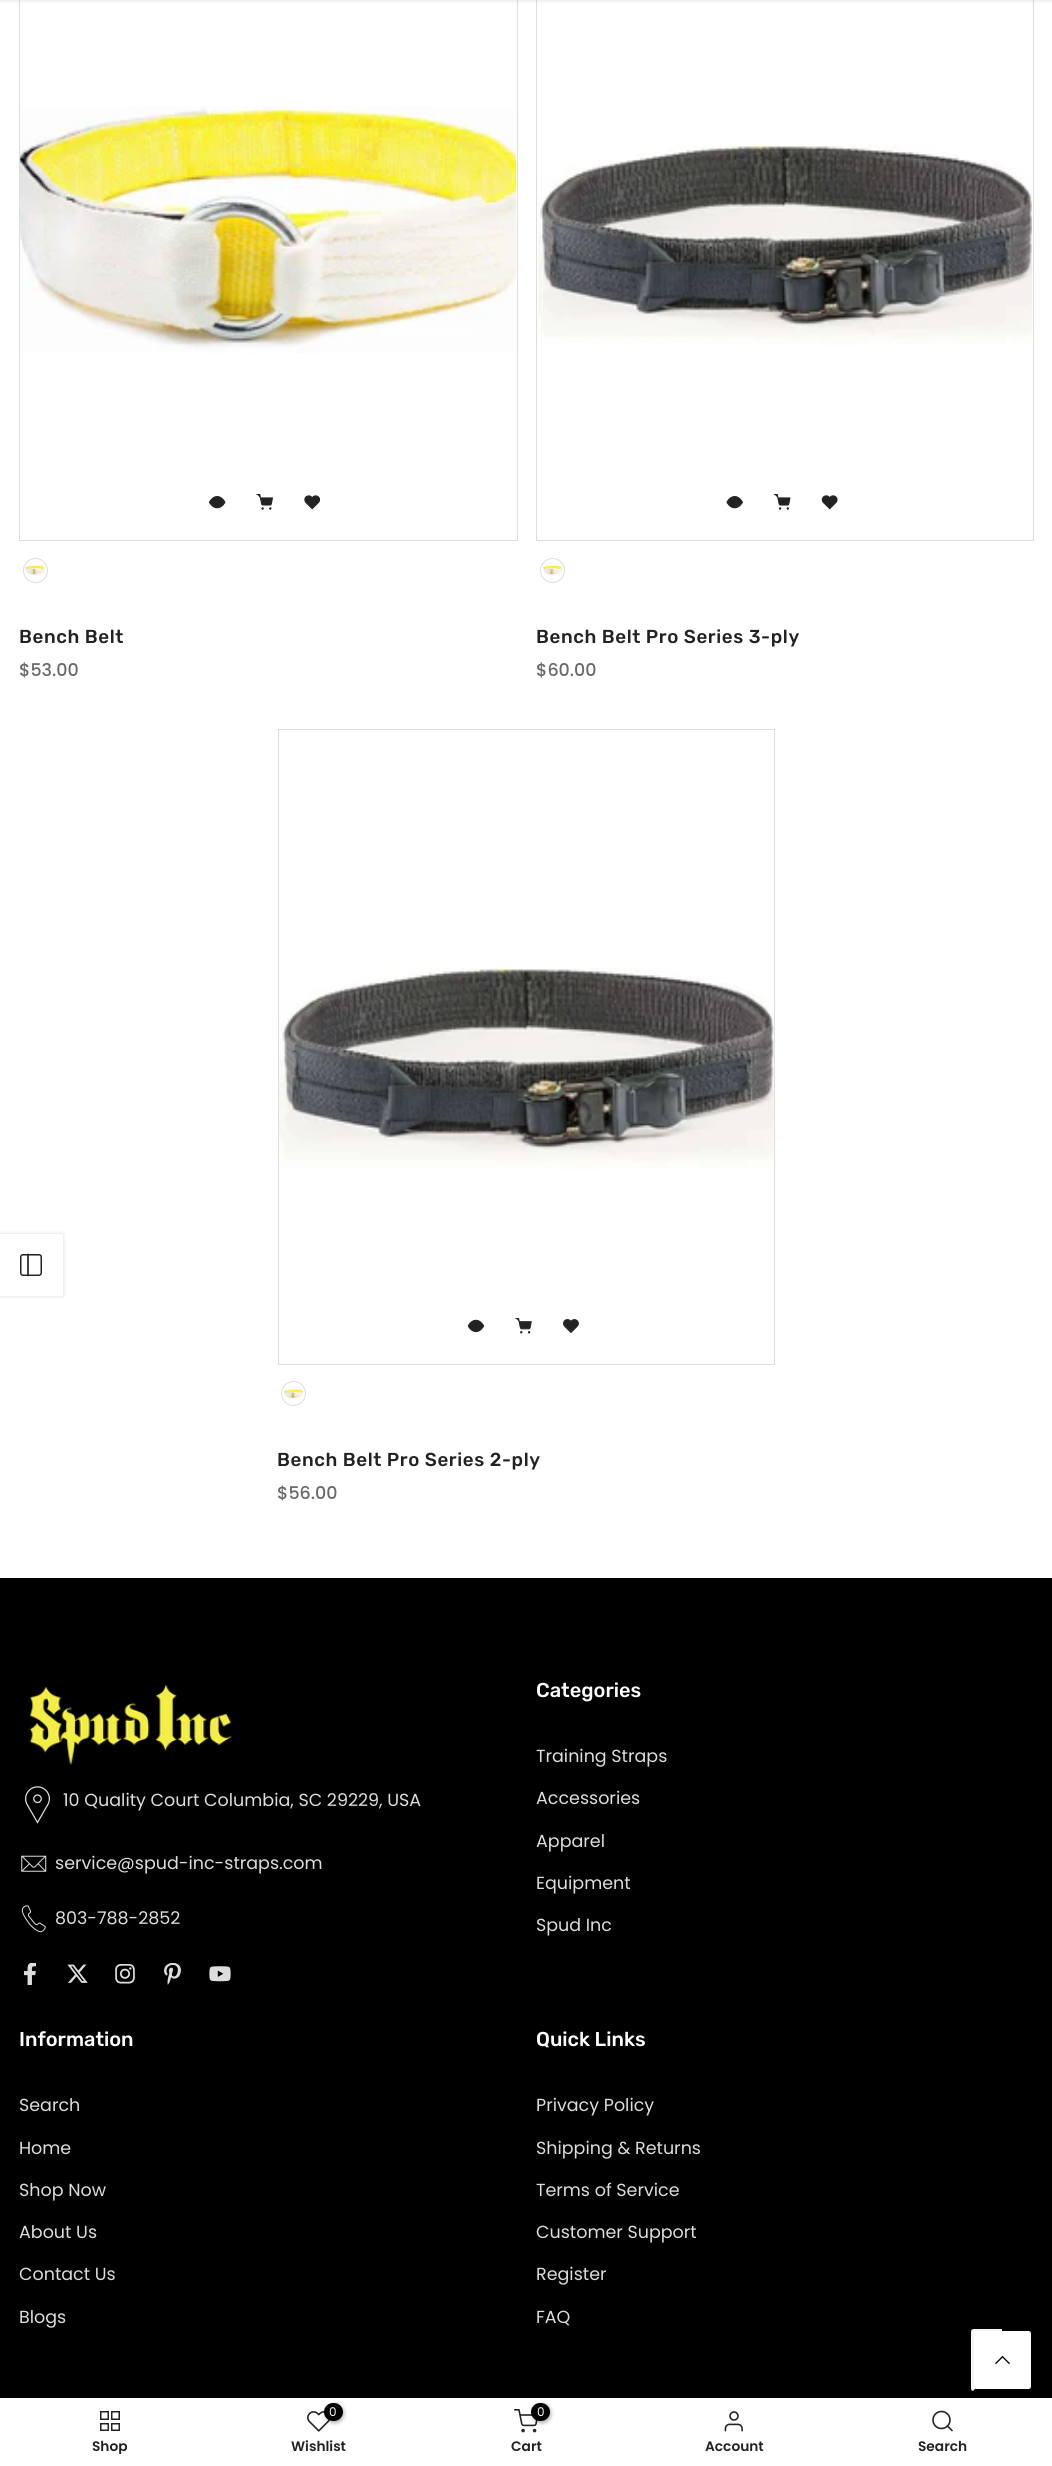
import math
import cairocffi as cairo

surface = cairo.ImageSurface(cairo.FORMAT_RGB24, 1052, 2466)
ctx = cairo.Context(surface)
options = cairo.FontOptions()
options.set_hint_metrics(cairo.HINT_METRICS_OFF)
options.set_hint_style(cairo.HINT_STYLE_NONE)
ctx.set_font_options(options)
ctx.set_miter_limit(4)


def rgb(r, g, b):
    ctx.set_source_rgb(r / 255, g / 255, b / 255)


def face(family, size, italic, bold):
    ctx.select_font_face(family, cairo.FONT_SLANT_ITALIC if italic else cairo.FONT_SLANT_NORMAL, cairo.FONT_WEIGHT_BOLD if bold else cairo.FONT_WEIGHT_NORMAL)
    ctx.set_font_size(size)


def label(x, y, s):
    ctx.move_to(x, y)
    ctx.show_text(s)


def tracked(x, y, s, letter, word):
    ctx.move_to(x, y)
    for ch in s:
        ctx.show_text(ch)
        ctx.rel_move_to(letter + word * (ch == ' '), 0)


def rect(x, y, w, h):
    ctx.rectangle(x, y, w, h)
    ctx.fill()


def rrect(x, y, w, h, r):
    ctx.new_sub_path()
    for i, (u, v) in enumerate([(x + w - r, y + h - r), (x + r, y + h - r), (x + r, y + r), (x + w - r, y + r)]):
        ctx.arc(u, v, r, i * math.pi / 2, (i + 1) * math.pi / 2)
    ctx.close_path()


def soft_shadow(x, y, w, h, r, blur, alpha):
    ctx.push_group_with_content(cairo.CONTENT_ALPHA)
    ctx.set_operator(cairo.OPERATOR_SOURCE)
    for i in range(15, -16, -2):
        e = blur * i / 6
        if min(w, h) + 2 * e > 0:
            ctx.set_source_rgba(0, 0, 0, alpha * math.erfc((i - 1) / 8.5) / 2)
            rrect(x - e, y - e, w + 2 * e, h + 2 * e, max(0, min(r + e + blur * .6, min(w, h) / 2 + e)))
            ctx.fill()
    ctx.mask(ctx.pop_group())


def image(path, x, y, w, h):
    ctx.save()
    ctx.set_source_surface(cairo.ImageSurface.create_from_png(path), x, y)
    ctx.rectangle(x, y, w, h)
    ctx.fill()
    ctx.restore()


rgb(255, 255, 255)
ctx.paint()
ctx.rectangle(19.5, -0.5, 498, 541)
rgb(221, 221, 221)
ctx.set_line_width(1)
ctx.stroke()
ctx.rectangle(536.5, -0.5, 497, 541)
ctx.stroke()
rgb(0, 0, 0)
soft_shadow(0, -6, 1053, 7, 0, 2, 0.1)
image('image0.png', 20, 106, 497, 247)
image('image1.png', 209, 496, 17, 13)
image('image2.png', 256, 494, 17, 16)
image('image3.png', 304, 495, 17, 15)
image('image4.png', 25, 562, 21, 14)
ctx.arc(35.5, 570.5, 12, 0, 2 * math.pi)
rgb(221, 221, 221)
ctx.stroke()
face('Rubik Medium', 18.75, 0, 0)
rgb(34, 34, 34)
tracked(19, 643, 'Bench Belt', 0.6, 0)
face('Poppins Medium', 17.5, 0, 0)
rgb(105, 105, 105)
label(19, 676, '$53.00')
image('image5.png', 538, 143, 495, 202)
image('image6.png', 726, 496, 17, 13)
image('image7.png', 774, 494, 17, 16)
image('image8.png', 821, 495, 17, 15)
image('image9.png', 543, 562, 20, 14)
ctx.arc(552.5, 570.5, 12, 0, 2 * math.pi)
rgb(221, 221, 221)
ctx.stroke()
face('Rubik Medium', 18.75, 0, 0)
rgb(34, 34, 34)
tracked(536, 643, 'Bench Belt Pro Series 3-ply', 0.6, 0)
face('Poppins Medium', 17.5, 0, 0)
rgb(105, 105, 105)
label(536, 676, '$60.00')
ctx.rectangle(278.5, 729.5, 496, 635)
rgb(221, 221, 221)
ctx.stroke()
image('image10.png', 279, 966, 495, 203)
image('image11.png', 468, 1319, 17, 14)
image('image12.png', 515, 1318, 17, 16)
image('image13.png', 563, 1319, 16, 14)
image('image14.png', 284, 1386, 21, 14)
ctx.arc(293.5, 1393.5, 12, 0, 2 * math.pi)
ctx.stroke()
face('Rubik Medium', 18.75, 0, 0)
rgb(34, 34, 34)
tracked(277, 1466, 'Bench Belt Pro Series 2-ply', 0.6, 0)
face('Poppins Medium', 17.5, 0, 0)
rgb(105, 105, 105)
label(277, 1499, '$56.00')
rgb(0, 0, 0)
soft_shadow(0, 1234, 63, 62, 0, 2, 0.15)
rgb(255, 255, 255)
rect(0, 1234, 63, 62)
rrect(20.75, 1254.75, 20.5, 20.5, 2.25)
rgb(34, 34, 34)
ctx.set_line_width(1.5)
ctx.stroke()
ctx.new_path()
ctx.move_to(28, 1254.5)
ctx.line_to(28, 1275.5)
ctx.set_line_width(1.7)
ctx.set_line_cap(cairo.LINE_CAP_ROUND)
ctx.set_line_join(cairo.LINE_JOIN_ROUND)
ctx.stroke()
rgb(0, 0, 0)
rect(0, 1578, 1052, 820)
image('image15.png', 28, 1685, 206, 80)
image('image16.png', 25, 1786, 25, 38)
face('Poppins', 17.5, 0, 0)
rgb(221, 221, 221)
label(63, 1806, '10 Quality Court Columbia, SC 29229, USA')
image('image17.png', 21, 1855, 26, 17)
label(55, 1869, 'service@spud-inc-straps.com')
image('image18.png', 21, 1905, 25, 28)
label(55, 1924, '803-788-2852')
image('image19.png', 23, 1963, 14, 22)
image('image20.png', 67, 1964, 21, 19)
image('image21.png', 115, 1964, 20, 20)
image('image22.png', 164, 1963, 17, 22)
image('image23.png', 209, 1966, 22, 16)
face('Rubik Medium', 20, 0, 0)
rgb(255, 255, 255)
label(536, 1697, 'Categories')
face('Poppins', 17.5, 0, 0)
rgb(221, 221, 221)
label(536, 1762, 'Training Straps')
label(536, 1804, 'Accessories')
label(536, 1847, 'Apparel')
label(536, 1889, 'Equipment')
label(536, 1931, 'Spud Inc')
face('Rubik Medium', 20, 0, 0)
rgb(255, 255, 255)
label(19, 2046, 'Information')
face('Poppins', 17.5, 0, 0)
rgb(221, 221, 221)
label(19, 2111, 'Search')
label(19, 2154, 'Home')
label(19, 2196, 'Shop Now')
label(19, 2238, 'About Us')
label(19, 2280, 'Contact Us')
label(19, 2323, 'Blogs')
face('Rubik Medium', 20, 0, 0)
rgb(255, 255, 255)
label(536, 2046, 'Quick Links')
face('Poppins', 17.5, 0, 0)
rgb(221, 221, 221)
label(536, 2111, 'Privacy Policy')
label(536, 2154, 'Shipping & Returns')
label(536, 2196, 'Terms of Service')
label(536, 2238, 'Customer Support')
label(536, 2280, 'Register')
label(536, 2323, 'FAQ')
rgb(245, 245, 245)
ctx.new_path()
ctx.move_to(1002, 2360)
ctx.line_to(1002, 2329)
ctx.line_to(974, 2329)
ctx.curve_to(972, 2329, 971, 2330, 971, 2332)
ctx.line_to(971, 2388)
ctx.curve_to(971, 2390, 972, 2391, 973, 2391)
ctx.close_path()
ctx.fill()
rgb(255, 255, 255)
rrect(974, 2331, 57, 58, 2.5)
ctx.fill()
image('image24.png', 995, 2355, 15, 10)
ctx.rectangle(100.75, 2411.75, 7.5, 7.5)
rgb(34, 34, 34)
ctx.set_line_width(1.5)
ctx.set_line_cap(cairo.LINE_CAP_BUTT)
ctx.set_line_join(cairo.LINE_JOIN_MITER)
ctx.stroke()
ctx.rectangle(111.75, 2411.75, 7.5, 7.5)
ctx.stroke()
ctx.rectangle(100.75, 2423.75, 7.5, 6.5)
ctx.stroke()
ctx.rectangle(111.75, 2423.75, 7.5, 6.5)
ctx.stroke()
ctx.save()
ctx.rectangle(19, 2440, 182, 14)
ctx.clip()
face('Poppins SemiBold', 13.75, 0, 0)
label(92, 2451, 'Shop')
ctx.restore()
image('image25.png', 307, 2411, 23, 21)
rgb(0, 0, 0)
soft_shadow(325, 2404, 19, 19, 9.5, 2, 0.3)
rgb(0, 0, 0)
rrect(324, 2403, 19, 18, 9)
ctx.fill()
face('Poppins', 12, 0, 0)
rgb(255, 255, 255)
label(329, 2416, '0')
face('Poppins SemiBold', 13.75, 0, 0)
rgb(34, 34, 34)
label(291, 2451, 'Wishlist')
image('image26.png', 514, 2409, 24, 24)
rgb(0, 0, 0)
soft_shadow(533, 2404, 18, 19, 9, 2, 0.3)
rgb(0, 0, 0)
rrect(531, 2403, 19, 18, 9)
ctx.fill()
face('Poppins', 12, 0, 0)
rgb(255, 255, 255)
label(537, 2416, '0')
face('Poppins SemiBold', 13.75, 0, 0)
rgb(34, 34, 34)
label(511, 2451, 'Cart')
image('image27.png', 724, 2411, 19, 21)
label(705, 2451, 'Account')
ctx.new_path()
ctx.arc(941.5, 2420, 8.5, 0, 2 * math.pi)
ctx.set_line_width(1.6)
ctx.stroke()
ctx.new_path()
ctx.move_to(952, 2430.5)
ctx.line_to(947.5, 2426)
ctx.set_line_cap(cairo.LINE_CAP_ROUND)
ctx.set_line_join(cairo.LINE_JOIN_ROUND)
ctx.stroke()
label(918, 2451, 'Search')
surface.write_to_png('render.png')
